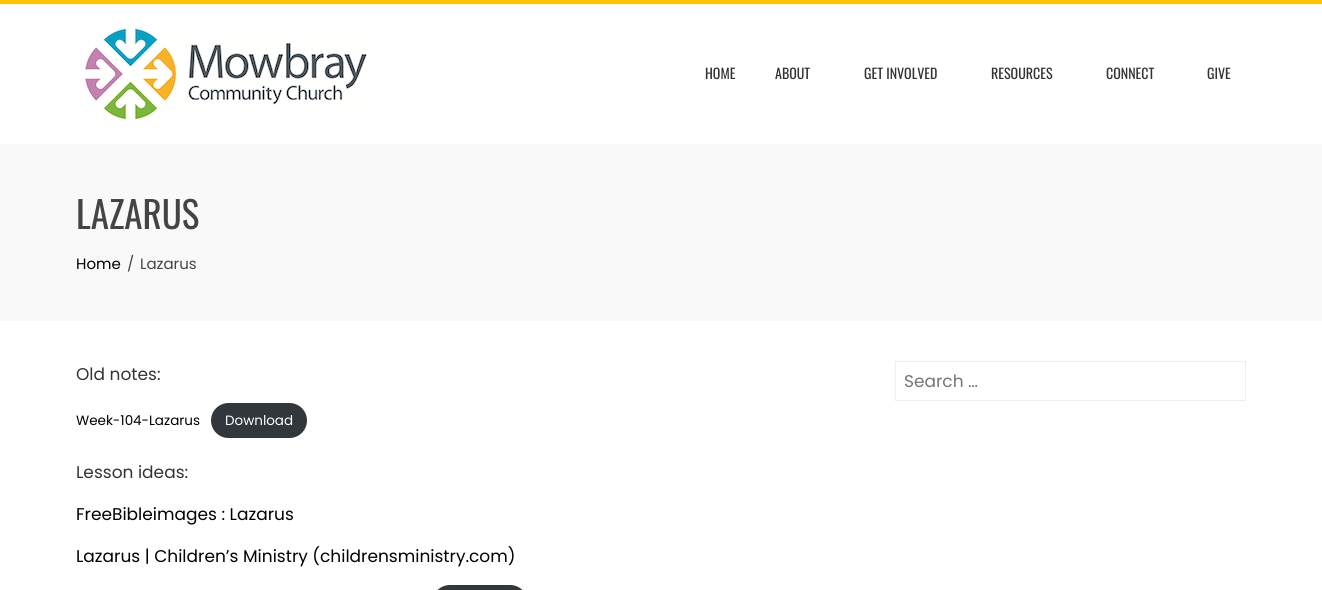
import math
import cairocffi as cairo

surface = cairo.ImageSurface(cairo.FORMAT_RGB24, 1322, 590)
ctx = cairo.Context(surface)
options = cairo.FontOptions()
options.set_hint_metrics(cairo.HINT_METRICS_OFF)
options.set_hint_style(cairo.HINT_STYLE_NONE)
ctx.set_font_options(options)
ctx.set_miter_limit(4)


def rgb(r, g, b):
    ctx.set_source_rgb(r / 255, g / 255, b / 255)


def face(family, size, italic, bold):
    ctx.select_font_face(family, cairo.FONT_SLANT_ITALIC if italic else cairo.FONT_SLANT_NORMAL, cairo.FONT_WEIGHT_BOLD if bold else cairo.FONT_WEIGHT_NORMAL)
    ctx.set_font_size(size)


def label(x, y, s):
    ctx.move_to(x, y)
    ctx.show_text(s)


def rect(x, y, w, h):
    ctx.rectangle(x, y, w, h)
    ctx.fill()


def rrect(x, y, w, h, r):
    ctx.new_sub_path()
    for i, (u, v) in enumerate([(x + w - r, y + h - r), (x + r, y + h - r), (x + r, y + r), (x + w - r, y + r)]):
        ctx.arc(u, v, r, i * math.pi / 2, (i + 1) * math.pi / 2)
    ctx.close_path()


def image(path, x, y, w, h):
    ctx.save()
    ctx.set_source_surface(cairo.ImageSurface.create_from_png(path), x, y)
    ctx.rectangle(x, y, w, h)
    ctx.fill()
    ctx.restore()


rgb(255, 255, 255)
ctx.paint()
rgb(255, 193, 7)
rect(0, 0, 1322, 4)
image('image0.png', 85, 28, 282, 92)
face('Oswald', 14, 0, 0)
rgb(51, 51, 51)
label(705, 79, 'HOME')
label(775, 79, 'ABOUT')
label(864, 79, 'GET INVOLVED')
label(991, 79, 'RESOURCES')
label(1106, 79, 'CONNECT')
label(1207, 79, 'GIVE')
rgb(249, 249, 249)
rect(0, 144, 1322, 177)
face('Oswald', 37, 0, 0)
rgb(68, 68, 68)
label(76, 229, 'LAZARUS')
face('Poppins', 15, 0, 0)
rgb(0, 0, 0)
label(76, 269, 'Home')
rgb(68, 68, 68)
label(127, 269, '/')
label(140, 269, 'Lazarus')
face('Poppins', 17, 0, 0)
rgb(51, 51, 51)
label(76, 380, 'Old notes:')
face('Poppins', 13.5, 0, 0)
rgb(0, 0, 0)
label(76, 425, 'Week-104-Lazarus')
rgb(50, 55, 60)
rrect(211, 403, 96, 35, 17.5)
ctx.fill()
rgb(255, 255, 255)
label(225, 425, 'Download')
face('Poppins', 17, 0, 0)
rgb(51, 51, 51)
label(76, 478, 'Lesson ideas:')
rgb(0, 0, 0)
label(76, 520, 'FreeBibleimages : Lazarus')
label(76, 562, 'Lazarus | Children’s Ministry (childrensministry.com)')
rgb(50, 55, 60)
rrect(432, 585, 96, 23, 18)
ctx.fill()
ctx.rectangle(895.5, 361.5, 350, 39)
rgb(238, 238, 238)
ctx.set_line_width(1)
ctx.stroke()
rgb(117, 117, 117)
label(904, 387, 'Search …')
surface.write_to_png('render.png')
